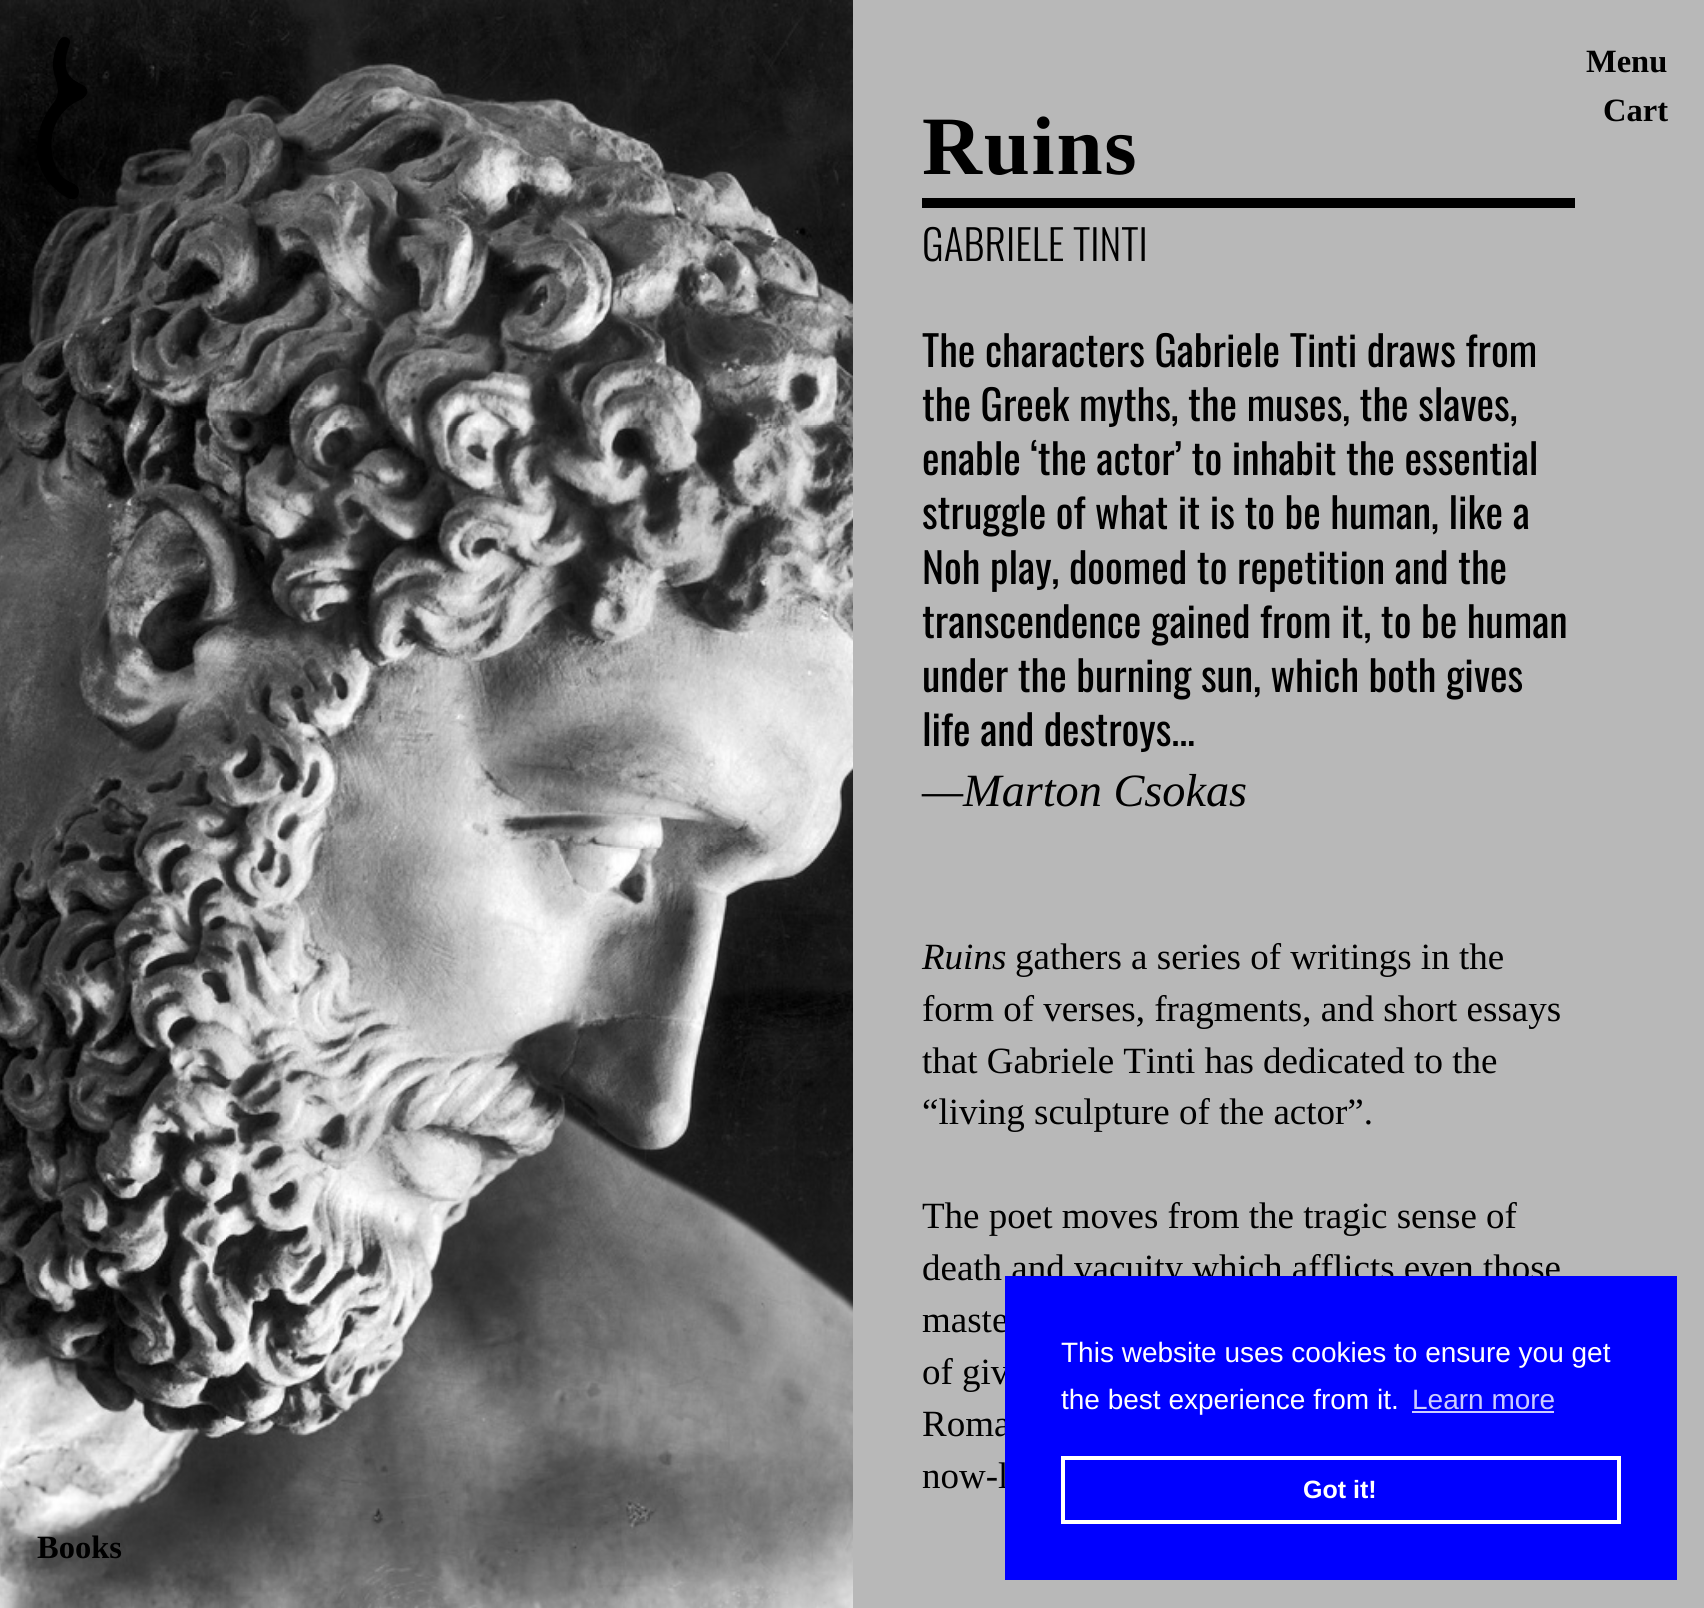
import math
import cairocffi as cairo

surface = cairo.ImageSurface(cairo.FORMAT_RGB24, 1704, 1608)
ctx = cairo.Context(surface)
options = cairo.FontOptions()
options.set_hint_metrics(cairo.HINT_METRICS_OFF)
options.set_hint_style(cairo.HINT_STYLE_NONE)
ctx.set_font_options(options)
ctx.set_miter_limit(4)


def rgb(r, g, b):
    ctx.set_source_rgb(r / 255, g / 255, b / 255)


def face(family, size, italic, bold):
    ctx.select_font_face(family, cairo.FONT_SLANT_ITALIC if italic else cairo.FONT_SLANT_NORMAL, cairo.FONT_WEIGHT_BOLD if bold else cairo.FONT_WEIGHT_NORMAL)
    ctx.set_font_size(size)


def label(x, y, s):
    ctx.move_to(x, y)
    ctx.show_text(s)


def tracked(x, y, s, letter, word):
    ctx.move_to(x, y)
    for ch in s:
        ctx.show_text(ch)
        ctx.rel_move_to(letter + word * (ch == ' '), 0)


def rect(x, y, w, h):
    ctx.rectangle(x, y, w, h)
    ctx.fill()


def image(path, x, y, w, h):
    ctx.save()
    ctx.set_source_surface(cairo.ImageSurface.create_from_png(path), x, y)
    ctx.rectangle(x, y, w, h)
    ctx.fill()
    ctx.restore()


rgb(184, 184, 184)
ctx.paint()
image('image1.png', 0, 0, 853, 1608)
image('image0.png', 37, 36, 51, 163)
face('Liberation Serif', 32.5, 0, 1)
rgb(0, 0, 0)
label(1586, 72, 'Menu')
label(1603, 121, 'Cart')
face('Liberation Serif', 83, 0, 1)
tracked(922, 174, 'Ruins', 1.75, 0)
rect(922, 198, 653, 10)
face('Oswald Light', 41.75, 0, 0)
label(922, 261, 'GABRIELE TINTI')
face('Oswald', 41.75, 0, 0)
label(922, 367, 'The characters Gabriele Tinti draws from')
label(922, 421, 'the Greek myths, the muses, the slaves,')
label(922, 475, 'enable ‘the actor’ to inhabit the essential')
label(922, 529, 'struggle of what it is to be human, like a')
label(922, 584, 'Noh play, doomed to repetition and the')
label(922, 638, 'transcendence gained from it, to be human')
label(922, 692, 'under the burning sun, which both gives')
label(922, 746, 'life and destroys...')
face('Liberation Serif', 46.25, 1, 0)
label(922, 806, '—Marton Csokas')
face('Liberation Serif', 37, 1, 0)
label(922, 969, 'Ruins')
face('Liberation Serif', 37, 0, 0)
label(1015, 969, 'gathers a series of writings in the')
label(922, 1021, 'form of verses, fragments, and short essays')
label(922, 1073, 'that Gabriele Tinti has dedicated to the')
label(922, 1124, '“living sculpture of the actor”.')
label(922, 1228, 'The poet moves from the tragic sense of')
label(922, 1280, 'death and vacuity which afflicts even those')
label(922, 1332, 'maste')
label(922, 1384, 'of giv')
label(922, 1436, 'Roma')
label(922, 1488, 'now-l')
face('Liberation Serif', 32.5, 0, 1)
label(37, 1558, 'Books')
rgb(0, 0, 255)
rect(1005, 1276, 672, 304)
face('Liberation Sans', 28, 0, 0)
rgb(255, 255, 255)
label(1061, 1362, 'This website uses cookies to ensure you get')
label(1061, 1409, 'the best experience from it.')
rgb(204, 204, 255)
label(1412, 1409, 'Learn more')
rect(1412, 1411, 142, 2)
ctx.rectangle(1063, 1458, 556, 64)
rgb(255, 255, 255)
ctx.set_line_width(4)
ctx.stroke()
face('Liberation Sans', 25, 0, 1)
label(1303, 1498, 'Got it!')
surface.write_to_png('render.png')
